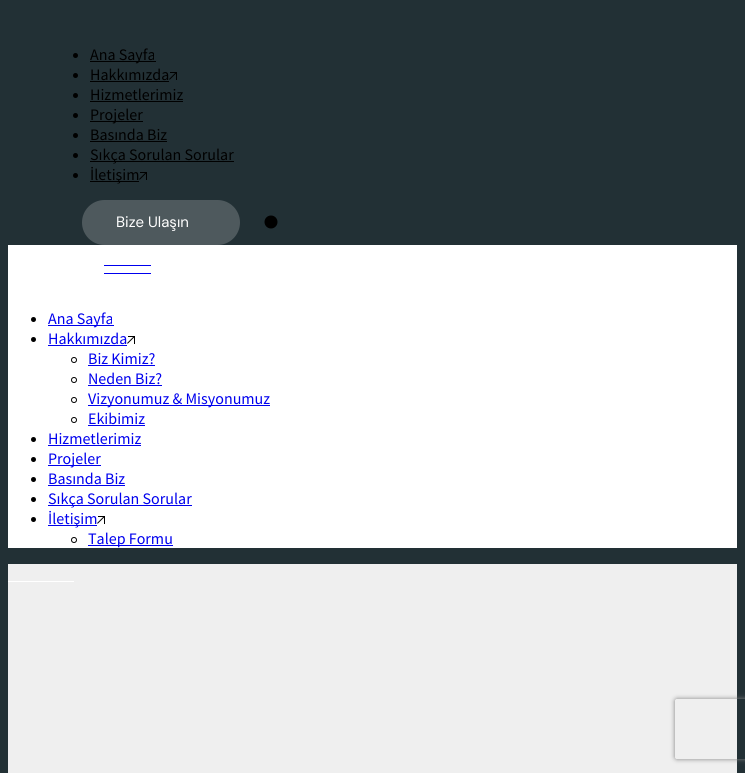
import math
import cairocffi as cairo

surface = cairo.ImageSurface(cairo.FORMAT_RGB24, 745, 773)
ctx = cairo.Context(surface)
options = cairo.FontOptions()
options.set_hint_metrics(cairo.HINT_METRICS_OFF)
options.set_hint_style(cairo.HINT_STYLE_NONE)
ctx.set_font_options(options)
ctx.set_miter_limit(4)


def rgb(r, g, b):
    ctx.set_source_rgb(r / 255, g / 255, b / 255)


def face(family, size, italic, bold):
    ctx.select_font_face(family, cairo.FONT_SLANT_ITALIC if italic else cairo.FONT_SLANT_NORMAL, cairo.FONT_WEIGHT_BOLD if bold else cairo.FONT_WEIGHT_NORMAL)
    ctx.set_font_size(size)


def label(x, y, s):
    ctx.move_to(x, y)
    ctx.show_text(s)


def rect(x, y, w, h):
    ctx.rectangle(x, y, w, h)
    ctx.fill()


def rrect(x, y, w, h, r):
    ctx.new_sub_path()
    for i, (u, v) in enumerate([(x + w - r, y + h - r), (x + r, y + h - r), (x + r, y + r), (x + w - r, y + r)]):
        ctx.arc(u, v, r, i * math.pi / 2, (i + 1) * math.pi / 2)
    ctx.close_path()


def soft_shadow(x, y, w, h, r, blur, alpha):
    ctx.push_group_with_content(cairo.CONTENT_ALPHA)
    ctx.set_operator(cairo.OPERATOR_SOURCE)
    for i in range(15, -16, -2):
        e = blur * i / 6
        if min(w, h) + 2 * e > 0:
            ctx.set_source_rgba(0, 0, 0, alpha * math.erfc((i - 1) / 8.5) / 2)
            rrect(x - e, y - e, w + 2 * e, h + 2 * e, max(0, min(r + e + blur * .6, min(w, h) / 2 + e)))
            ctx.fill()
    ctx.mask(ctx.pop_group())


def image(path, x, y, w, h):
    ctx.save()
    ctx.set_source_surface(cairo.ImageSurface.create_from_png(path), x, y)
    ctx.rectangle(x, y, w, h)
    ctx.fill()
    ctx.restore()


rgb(34, 48, 53)
ctx.paint()
rgb(0, 0, 0)
ctx.arc(75.5, 55.5, 2.5, 0, 2 * math.pi)
ctx.fill()
rect(90, 61, 66, 1)
face('Source Sans Pro', 16, 0, 0)
label(90, 60, 'Ana Sayfa')
ctx.new_path()
ctx.arc(75.5, 75.5, 2.5, 0, 2 * math.pi)
ctx.fill()
label(90, 80, 'Hakkımızda')
rect(90, 81, 79, 1)
image('image0.png', 169, 72, 8, 8)
ctx.arc(75.5, 95.5, 2.5, 0, 2 * math.pi)
ctx.fill()
label(90, 100, 'Hizmetlerimiz')
rect(90, 101, 93, 1)
ctx.new_path()
ctx.arc(75.5, 115.5, 2.5, 0, 2 * math.pi)
ctx.fill()
rect(90, 121, 53, 1)
label(90, 120, 'Projeler')
ctx.new_path()
ctx.arc(75.5, 135.5, 2.5, 0, 2 * math.pi)
ctx.fill()
label(90, 140, 'Basında Biz')
rect(90, 141, 77, 1)
ctx.new_path()
ctx.arc(75.5, 155.5, 2.5, 0, 2 * math.pi)
ctx.fill()
rect(90, 161, 144, 1)
label(90, 160, 'Sıkça Sorulan Sorular')
ctx.new_path()
ctx.arc(75.5, 175.5, 2.5, 0, 2 * math.pi)
ctx.fill()
rect(90, 181, 49, 1)
label(90, 180, 'İletişim')
image('image0.png', 139, 172, 8, 8)
rgb(78, 89, 93)
rrect(82, 200, 158, 45, 22.5)
ctx.fill()
face('DM Sans', 15, 0, 0)
rgb(255, 255, 255)
label(116, 227, 'Bize Ulaşın')
rgb(0, 0, 0)
ctx.new_path()
ctx.arc(271, 222, 6.5, 0, 2 * math.pi)
ctx.fill()
rgb(255, 255, 255)
rect(8, 245, 729, 303)
rgb(0, 0, 238)
rect(104, 265, 47, 1)
rect(104, 273, 47, 1)
rgb(0, 0, 0)
ctx.arc(33.5, 319.5, 2.5, 0, 2 * math.pi)
ctx.fill()
rgb(0, 0, 238)
rect(48, 325, 66, 1)
face('Source Sans Pro', 16, 0, 0)
label(48, 324, 'Ana Sayfa')
rgb(0, 0, 0)
ctx.new_path()
ctx.arc(33.5, 339.5, 2.5, 0, 2 * math.pi)
ctx.fill()
rgb(0, 0, 238)
label(48, 344, 'Hakkımızda')
rect(48, 345, 79, 1)
image('image1.png', 127, 336, 8, 8)
ctx.arc(74, 360, 2.5, 0, 2 * math.pi)
rgb(0, 0, 0)
ctx.set_line_width(1)
ctx.stroke()
rgb(0, 0, 238)
label(88, 364, 'Biz Kimiz?')
rect(88, 365, 67, 1)
ctx.new_path()
ctx.arc(74, 380, 2.5, 0, 2 * math.pi)
rgb(0, 0, 0)
ctx.stroke()
rgb(0, 0, 238)
label(88, 384, 'Neden Biz?')
rect(88, 385, 74, 1)
ctx.new_path()
ctx.arc(74, 400, 2.5, 0, 2 * math.pi)
rgb(0, 0, 0)
ctx.stroke()
rgb(0, 0, 238)
rect(88, 405, 182, 1)
label(88, 404, 'Vizyonumuz & Misyonumuz')
ctx.new_path()
ctx.arc(74, 420, 2.5, 0, 2 * math.pi)
rgb(0, 0, 0)
ctx.stroke()
rgb(0, 0, 238)
label(88, 424, 'Ekibimiz')
rect(88, 425, 57, 1)
rgb(0, 0, 0)
ctx.new_path()
ctx.arc(33.5, 439.5, 2.5, 0, 2 * math.pi)
ctx.fill()
rgb(0, 0, 238)
label(48, 444, 'Hizmetlerimiz')
rect(48, 445, 93, 1)
rgb(0, 0, 0)
ctx.new_path()
ctx.arc(33.5, 459.5, 2.5, 0, 2 * math.pi)
ctx.fill()
rgb(0, 0, 238)
rect(48, 465, 53, 1)
label(48, 464, 'Projeler')
rgb(0, 0, 0)
ctx.new_path()
ctx.arc(33.5, 479.5, 2.5, 0, 2 * math.pi)
ctx.fill()
rgb(0, 0, 238)
label(48, 484, 'Basında Biz')
rect(48, 485, 77, 1)
rgb(0, 0, 0)
ctx.new_path()
ctx.arc(33.5, 499.5, 2.5, 0, 2 * math.pi)
ctx.fill()
rgb(0, 0, 238)
rect(48, 505, 144, 1)
label(48, 504, 'Sıkça Sorulan Sorular')
rgb(0, 0, 0)
ctx.new_path()
ctx.arc(33.5, 519.5, 2.5, 0, 2 * math.pi)
ctx.fill()
rgb(0, 0, 238)
rect(48, 525, 49, 1)
label(48, 524, 'İletişim')
image('image1.png', 97, 516, 8, 8)
ctx.arc(74, 540, 2.5, 0, 2 * math.pi)
rgb(0, 0, 0)
ctx.stroke()
rgb(0, 0, 238)
rect(88, 545, 85, 1)
label(88, 544, 'Talep Formu')
rgb(239, 239, 239)
rect(8, 564, 729, 209)
rgb(255, 255, 255)
rect(8, 581, 66, 1)
ctx.save()
ctx.set_fill_rule(cairo.FILL_RULE_EVEN_ODD)
ctx.new_path()
ctx.move_to(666, 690)
ctx.line_to(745, 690)
ctx.line_to(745, 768)
ctx.line_to(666, 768)
ctx.close_path()
ctx.move_to(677, 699)
ctx.line_to(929, 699)
ctx.curve_to(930, 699, 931, 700, 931, 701)
ctx.line_to(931, 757)
ctx.curve_to(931, 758, 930, 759, 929, 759)
ctx.line_to(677, 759)
ctx.curve_to(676, 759, 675, 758, 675, 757)
ctx.line_to(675, 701)
ctx.curve_to(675, 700, 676, 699, 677, 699)
ctx.close_path()
ctx.clip()
rgb(128, 128, 128)
soft_shadow(675, 699, 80, 60, 2, 2.5, 1)
ctx.restore()
surface.write_to_png('render.png')
